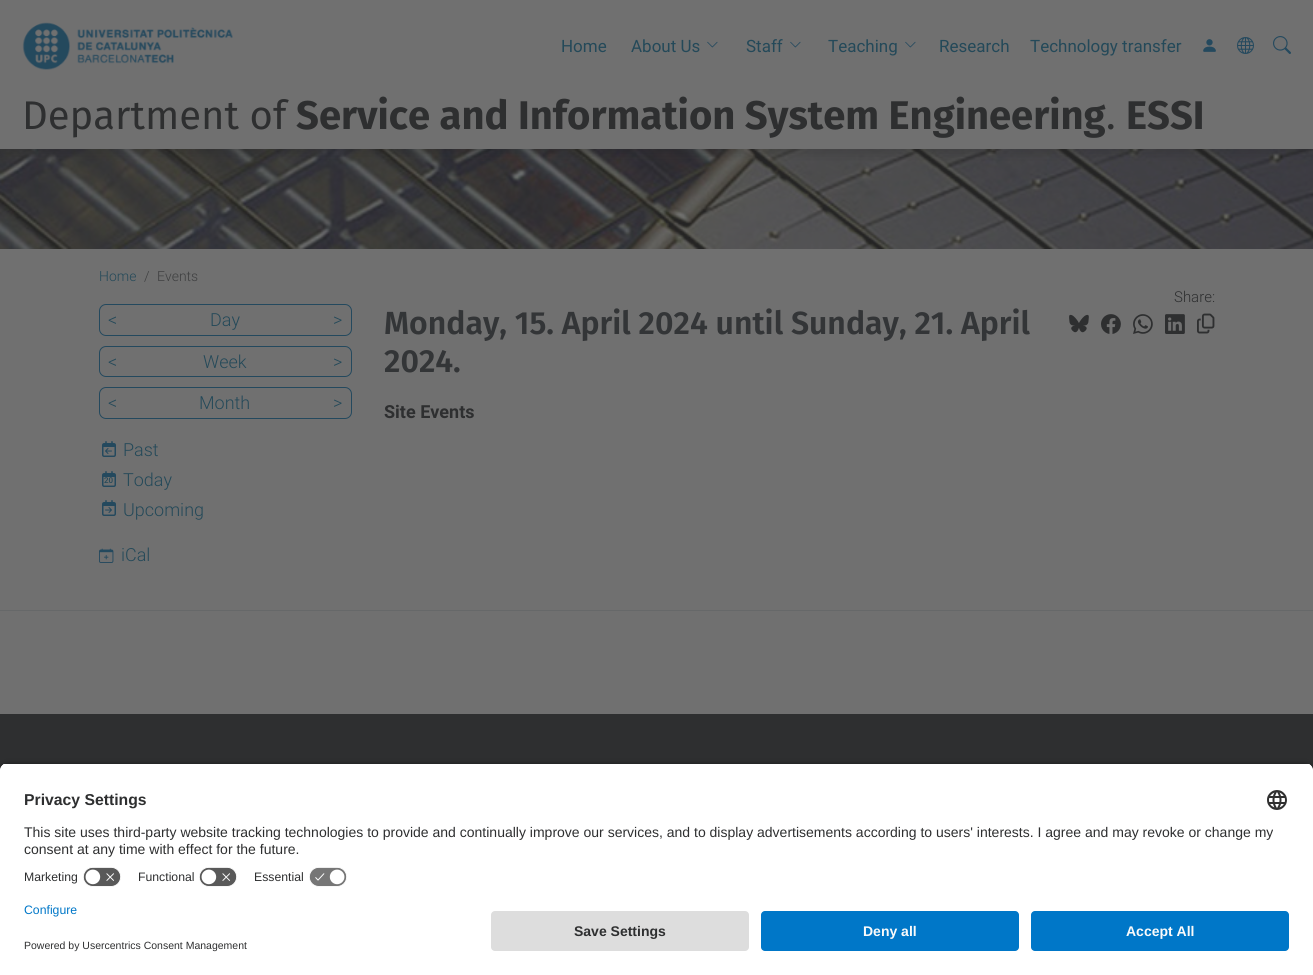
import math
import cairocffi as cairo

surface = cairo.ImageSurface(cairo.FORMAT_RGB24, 1313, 975)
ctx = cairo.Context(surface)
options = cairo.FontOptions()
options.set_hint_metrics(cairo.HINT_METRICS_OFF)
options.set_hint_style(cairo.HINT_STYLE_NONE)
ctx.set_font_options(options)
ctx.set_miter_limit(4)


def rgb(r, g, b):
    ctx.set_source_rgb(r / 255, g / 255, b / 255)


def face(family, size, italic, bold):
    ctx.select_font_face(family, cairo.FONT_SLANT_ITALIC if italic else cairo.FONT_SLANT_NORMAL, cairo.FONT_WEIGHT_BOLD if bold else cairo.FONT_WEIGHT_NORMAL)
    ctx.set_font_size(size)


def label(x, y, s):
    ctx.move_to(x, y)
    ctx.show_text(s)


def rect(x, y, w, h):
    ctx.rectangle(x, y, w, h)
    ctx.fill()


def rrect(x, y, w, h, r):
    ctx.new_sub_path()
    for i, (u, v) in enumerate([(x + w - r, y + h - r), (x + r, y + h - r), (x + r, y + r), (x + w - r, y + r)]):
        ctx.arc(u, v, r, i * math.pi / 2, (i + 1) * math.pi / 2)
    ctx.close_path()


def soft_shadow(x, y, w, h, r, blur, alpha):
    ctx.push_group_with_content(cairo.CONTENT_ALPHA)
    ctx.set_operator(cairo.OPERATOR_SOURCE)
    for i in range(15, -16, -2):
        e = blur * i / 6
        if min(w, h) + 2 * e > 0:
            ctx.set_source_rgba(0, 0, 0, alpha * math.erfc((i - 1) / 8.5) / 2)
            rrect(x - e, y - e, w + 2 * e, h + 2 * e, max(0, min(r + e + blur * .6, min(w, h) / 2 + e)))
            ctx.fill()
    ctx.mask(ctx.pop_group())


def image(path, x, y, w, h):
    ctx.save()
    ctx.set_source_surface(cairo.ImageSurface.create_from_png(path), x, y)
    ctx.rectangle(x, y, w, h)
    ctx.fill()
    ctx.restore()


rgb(112, 112, 112)
ctx.paint()
image('image0.png', 22, 22, 211, 48)
face('Roboto', 17, 0, 0)
rgb(36, 73, 89)
label(561, 52, 'Home')
label(631, 52, 'About Us')
image('image1.png', 707, 41, 11, 7)
label(746, 52, 'Staff')
image('image1.png', 790, 41, 11, 7)
label(828, 52, 'Teaching')
image('image1.png', 905, 41, 11, 7)
label(939, 52, 'Research')
label(1030, 52, 'Technology transfer')
image('image2.png', 1203, 39, 13, 13)
image('image3.png', 1237, 37, 17, 17)
image('image4.png', 1273, 36, 18, 18)
image('image5.png', 0, 149, 1313, 100)
ctx.save()
ctx.rectangle(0, 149, 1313, 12)
ctx.clip()
rgb(36, 36, 36)
soft_shadow(0, 99, 1313, 57, 0, 4, 0.2)
ctx.restore()
face('Fira Sans', 40, 0, 0)
rgb(46, 47, 48)
label(22, 129, 'Department of')
face('Fira Sans', 40, 0, 1)
label(296, 129, 'Service and Information System Engineering')
face('Fira Sans', 40, 0, 0)
label(1106, 129, '.')
face('Fira Sans', 40, 0, 1)
label(1126, 129, 'ESSI')
face('Roboto Light', 14, 0, 0)
rgb(36, 73, 89)
label(99, 281, 'Home')
rgb(62, 63, 64)
label(144, 281, '/')
label(157, 281, 'Events')
rrect(99.5, 304.5, 252, 31, 6.5)
rgb(36, 73, 94)
ctx.set_line_width(1)
ctx.stroke()
face('Roboto Light', 18, 0, 0)
rgb(36, 73, 89)
label(108, 326, '<')
label(210, 326, 'Day')
label(333, 326, '>')
rrect(99.5, 346.5, 252, 30, 6.5)
rgb(36, 73, 94)
ctx.stroke()
rgb(36, 73, 89)
label(108, 368, '<')
label(203, 368, 'Week')
label(333, 368, '>')
rrect(99.5, 387.5, 252, 31, 6.5)
rgb(36, 73, 94)
ctx.stroke()
rgb(36, 73, 89)
label(108, 409, '<')
label(199, 409, 'Month')
label(333, 409, '>')
image('image6.png', 102, 441, 14, 16)
image('image7.png', 105, 448, 7, 6)
label(123, 456, 'Past')
face('Roboto Medium', 8, 0, 0)
label(104, 483, '20')
image('image8.png', 102, 471, 14, 16)
face('Roboto Light', 18, 0, 0)
label(123, 486, 'Today')
image('image6.png', 102, 500, 14, 16)
image('image9.png', 105, 507, 7, 6)
label(123, 516, 'Upcoming')
image('image10.png', 99, 548, 15, 15)
label(121, 561, 'iCal')
face('Roboto Light', 15, 0, 0)
rgb(46, 47, 48)
label(1174, 302, 'Share:')
image('image11.png', 1069, 314, 20, 19)
image('image12.png', 1101, 314, 20, 20)
image('image13.png', 1133, 314, 20, 20)
image('image14.png', 1165, 314, 20, 20)
image('image15.png', 1197, 313, 18, 21)
face('Fira Sans SemiBold', 32, 0, 0)
rgb(51, 53, 55)
label(384, 334, 'Monday, 15. April 2024 until Sunday, 21. April')
label(384, 372, '2024.')
face('Roboto', 18, 0, 1)
rgb(46, 47, 48)
label(384, 418, 'Site Events')
rect(0, 714, 1313, 57)
rgb(102, 104, 105)
rect(0, 610, 1313, 1)
rgb(0, 0, 0)
soft_shadow(0, 766, 1313, 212, 8, 3.5, 0.8)
ctx.save()
ctx.new_path()
ctx.move_to(8, 763)
ctx.line_to(1305, 763)
ctx.curve_to(1309.5, 763, 1313, 766.5, 1313, 771)
ctx.line_to(1313, 903)
ctx.line_to(0, 903)
ctx.line_to(0, 771)
ctx.curve_to(0, 766.5, 3.5, 763, 8, 763)
ctx.close_path()
ctx.clip()
rgb(255, 255, 255)
rect(0, 764, 1313, 139)
rect(0, 764, 1313, 99)
ctx.restore()
face('Liberation Sans', 15.75, 0, 1)
rgb(46, 47, 48)
label(24, 805, 'Privacy Settings')
image('image16.png', 1267, 790, 20, 20)
face('Liberation Sans', 14, 0, 0)
label(24, 837, 'This site uses third-party website tracking technologies to provide and continually improve our services, and to display advertisements according to users\' interests. I agree and may revoke or change my')
label(24, 854, 'consent at any time with effect for the future.')
face('Liberation Sans', 12.25, 0, 0)
label(24, 881, 'Marketing')
image('image17.png', 83, 867, 38, 20)
label(138, 881, 'Functional')
image('image17.png', 199, 867, 38, 20)
label(254, 881, 'Essential')
image('image18.png', 309, 867, 38, 20)
rgb(255, 255, 255)
rect(0, 903, 1313, 72)
rgb(0, 119, 200)
label(24, 914, 'Configure')
face('Liberation Sans', 10.5, 0, 0)
rgb(46, 47, 48)
label(24, 949, 'Powered by Usercentrics Consent Management')
rgb(221, 221, 221)
rrect(491, 911, 258, 40, 4)
ctx.fill()
face('Liberation Sans', 14, 0, 1)
rgb(46, 47, 48)
label(574, 936, 'Save Settings')
rgb(0, 119, 200)
rrect(761, 911, 258, 40, 4)
ctx.fill()
rgb(250, 250, 250)
label(863, 936, 'Deny all')
rgb(0, 119, 200)
rrect(1031, 911, 258, 40, 4)
ctx.fill()
rgb(250, 250, 250)
label(1126, 936, 'Accept All')
surface.write_to_png('render.png')
